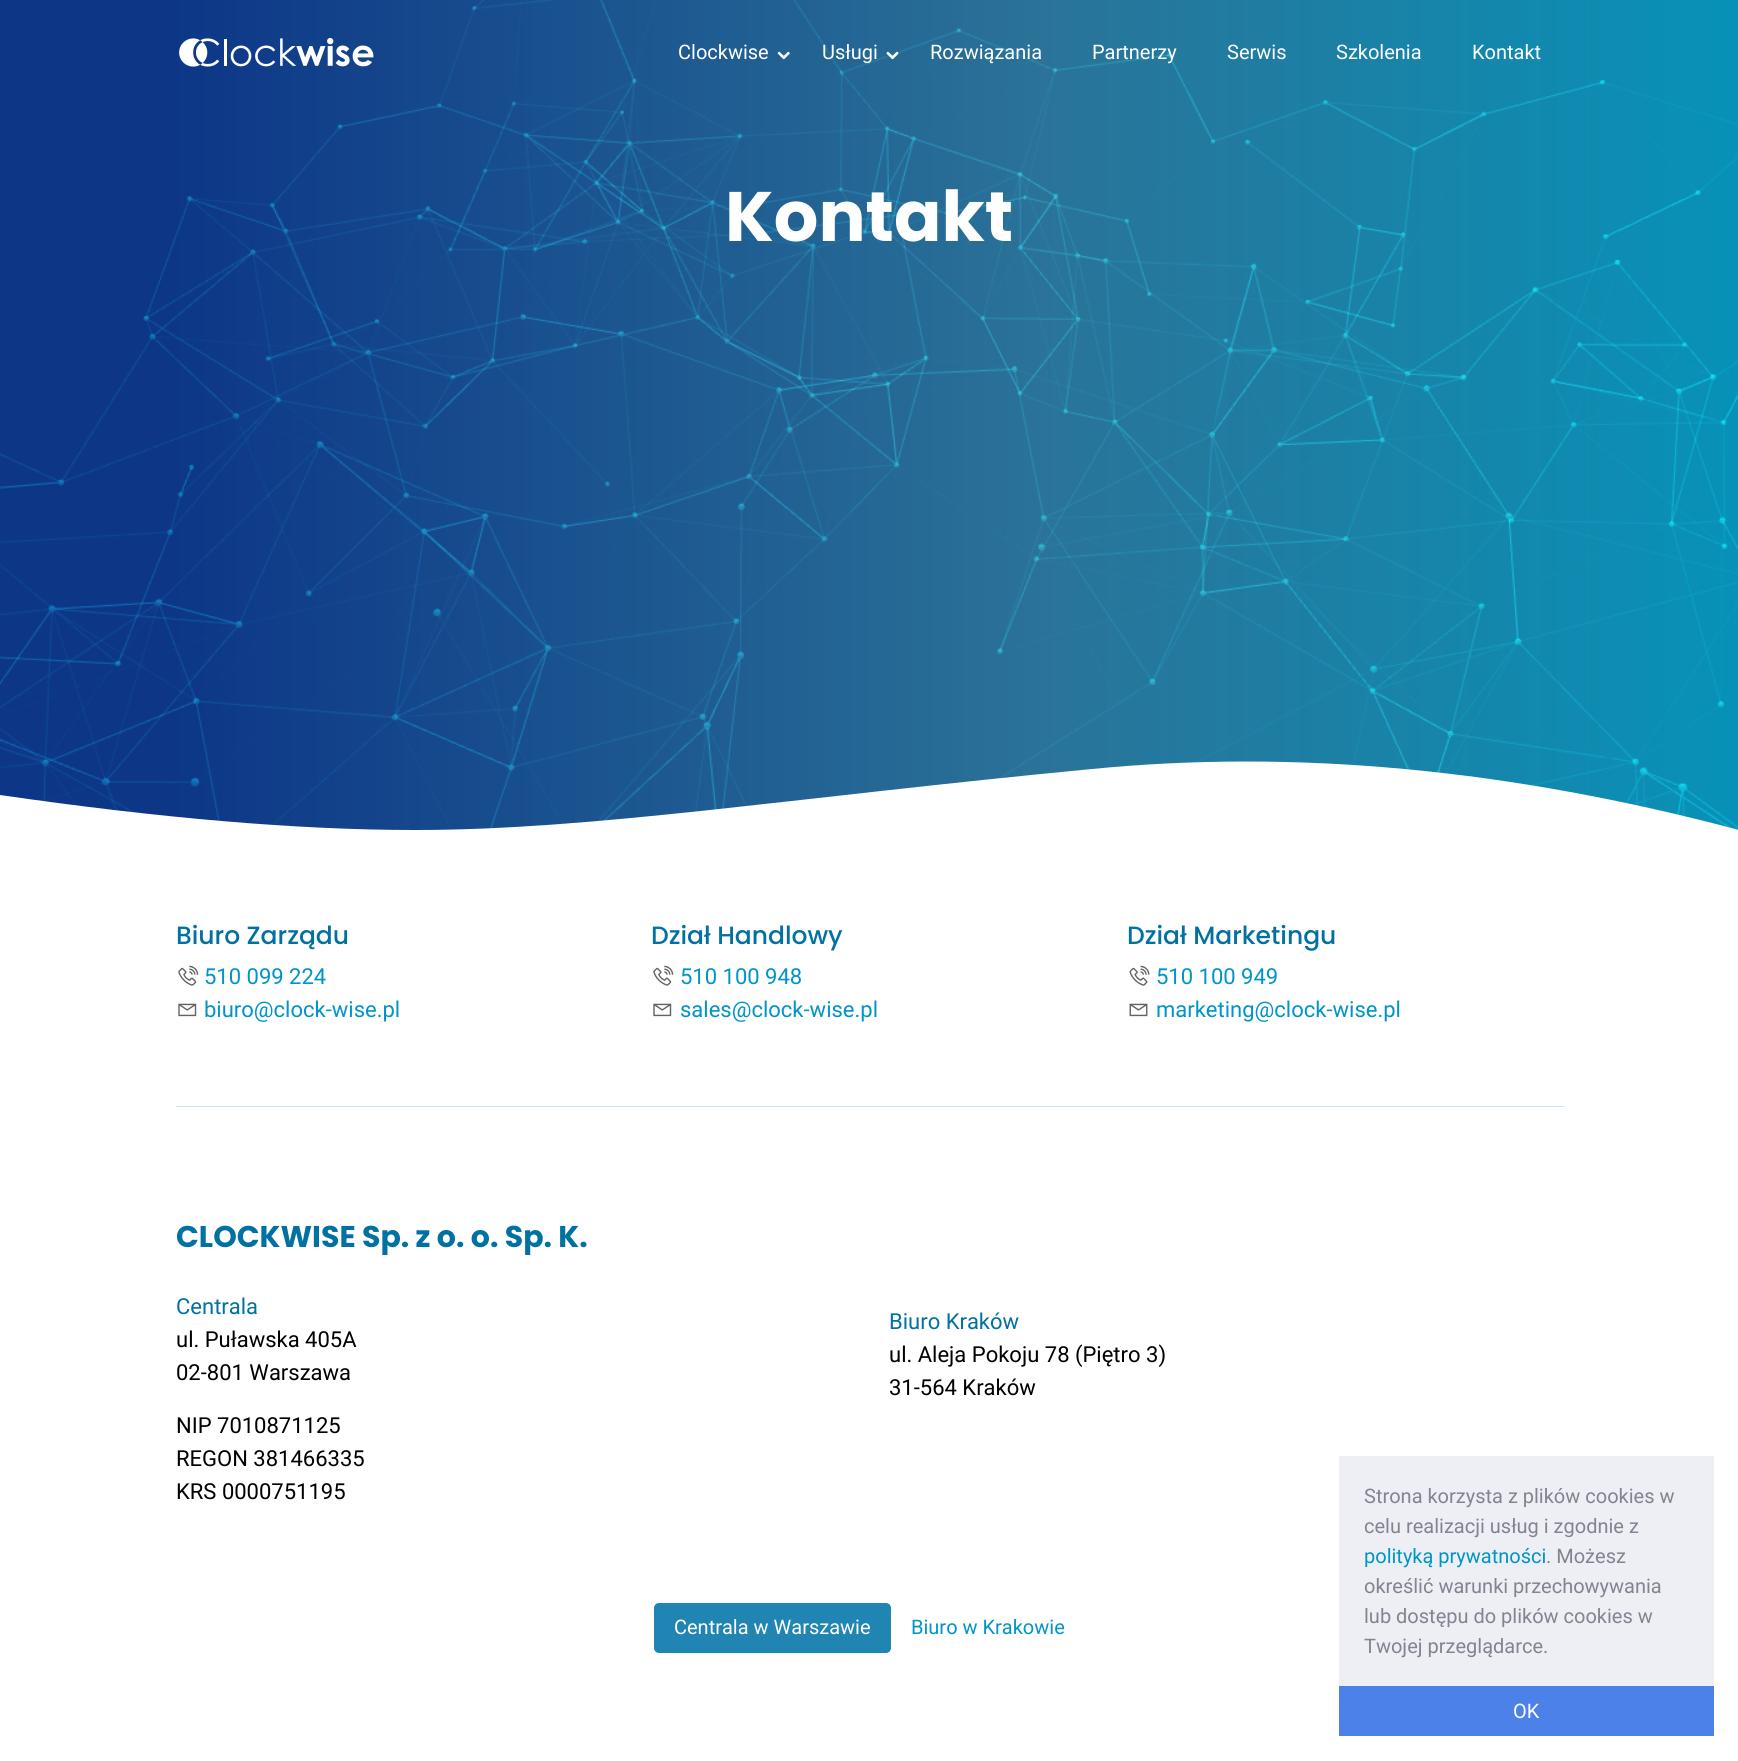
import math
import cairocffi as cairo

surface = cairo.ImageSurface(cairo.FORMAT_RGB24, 1738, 1761)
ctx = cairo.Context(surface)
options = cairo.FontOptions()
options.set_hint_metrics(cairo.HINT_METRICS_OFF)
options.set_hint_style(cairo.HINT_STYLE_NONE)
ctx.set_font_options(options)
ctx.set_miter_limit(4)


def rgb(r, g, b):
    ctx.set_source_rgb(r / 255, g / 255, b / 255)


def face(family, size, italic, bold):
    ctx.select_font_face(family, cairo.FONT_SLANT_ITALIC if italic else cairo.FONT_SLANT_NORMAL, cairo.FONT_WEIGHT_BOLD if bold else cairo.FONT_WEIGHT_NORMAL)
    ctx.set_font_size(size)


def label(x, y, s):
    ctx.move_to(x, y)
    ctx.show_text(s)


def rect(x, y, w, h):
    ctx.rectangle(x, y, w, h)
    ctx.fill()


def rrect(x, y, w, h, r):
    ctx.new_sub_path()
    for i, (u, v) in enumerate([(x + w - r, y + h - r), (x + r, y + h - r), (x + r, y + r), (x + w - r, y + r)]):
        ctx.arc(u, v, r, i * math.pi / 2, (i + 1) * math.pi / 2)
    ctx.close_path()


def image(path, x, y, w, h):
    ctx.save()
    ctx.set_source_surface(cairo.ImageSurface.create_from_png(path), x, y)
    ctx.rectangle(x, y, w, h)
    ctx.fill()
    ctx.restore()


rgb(255, 255, 255)
ctx.paint()
gradient = cairo.LinearGradient(0, 441, 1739, 441)
gradient.add_color_stop_rgba(0.1, 0.082, 0.329, 0.62, 1)
gradient.add_color_stop_rgba(0.6, 0.278, 0.725, 0.733, 1)
gradient.add_color_stop_rgba(1, 0.051, 0.925, 0.937, 1)
ctx.set_source(gradient)
rect(0, 0, 1738, 830)
image('image3.png', 0, 0, 1738, 830)
image('image0.png', 179, 37, 195, 30)
face('Roboto', 20, 0, 0)
rgb(255, 255, 255)
label(678, 59, 'Clockwise')
image('image1.png', 777, 51, 13, 9)
label(822, 59, 'Usługi')
image('image2.png', 886, 51, 13, 9)
label(930, 59, 'Rozwiązania')
label(1092, 59, 'Partnerzy')
label(1227, 59, 'Serwis')
label(1336, 59, 'Szkolenia')
label(1472, 59, 'Kontakt')
face('Poppins', 70, 0, 1)
label(725, 241, 'Kontakt')
ctx.set_fill_rule(cairo.FILL_RULE_EVEN_ODD)
ctx.new_path()
ctx.move_to(0, 795)
ctx.curve_to(159, 818, 297, 830, 415, 830)
ctx.curve_to(593, 830, 788, 798, 1092, 769)
ctx.curve_to(1295, 749, 1510, 769, 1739, 830)
ctx.line_to(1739, 1083)
ctx.line_to(0, 1083)
ctx.close_path()
ctx.fill()
face('Poppins Medium', 25, 0, 0)
rgb(0, 113, 161)
label(176, 944, 'Biuro Zarządu')
image('image4.png', 178, 965, 21, 21)
face('Roboto', 22, 0, 0)
rgb(0, 148, 200)
label(204, 984, '510 099 224')
image('image5.png', 178, 1003, 19, 14)
label(204, 1017, 'biuro@clock-wise.pl')
face('Poppins Medium', 25, 0, 0)
rgb(0, 113, 161)
label(651, 944, 'Dział Handlowy')
image('image4.png', 653, 965, 21, 21)
face('Roboto', 22, 0, 0)
rgb(0, 148, 200)
label(680, 984, '510 100 948')
image('image5.png', 653, 1003, 19, 14)
label(680, 1017, 'sales@clock-wise.pl')
face('Poppins Medium', 25, 0, 0)
rgb(0, 113, 161)
label(1127, 944, 'Dział Marketingu')
image('image6.png', 1129, 965, 21, 21)
face('Roboto', 22, 0, 0)
rgb(0, 148, 200)
label(1156, 984, '510 100 949')
image('image7.png', 1129, 1003, 19, 14)
label(1156, 1017, 'marketing@clock-wise.pl')
rgb(203, 227, 253)
rect(176, 1106, 1388, 1)
face('Poppins', 30, 0, 1)
rgb(0, 113, 161)
label(176, 1247, 'CLOCKWISE Sp. z o. o. Sp. K.')
face('Roboto', 22, 0, 0)
label(176, 1314, 'Centrala')
rgb(0, 0, 0)
label(176, 1347, 'ul. Puławska 405A')
label(176, 1380, '02-801 Warszawa')
label(176, 1433, 'NIP 7010871125')
label(176, 1466, 'REGON 381466335')
label(176, 1499, 'KRS 0000751195')
rgb(0, 113, 161)
label(889, 1329, 'Biuro Kraków')
rgb(0, 0, 0)
label(889, 1362, 'ul. Aleja Pokoju 78 (Piętro 3)')
label(889, 1395, '31-564 Kraków')
rgb(33, 133, 179)
rrect(654, 1603, 237, 50, 5)
ctx.fill()
face('Roboto', 20, 0, 0)
rgb(255, 255, 255)
label(674, 1634, 'Centrala w Warszawie')
rgb(0, 148, 200)
label(911, 1634, 'Biuro w Krakowie')
rgb(237, 239, 245)
rect(1339, 1456, 375, 230)
rgb(131, 131, 145)
label(1364, 1503, 'Strona korzysta z plików cookies w')
label(1364, 1533, 'celu realizacji usług i zgodnie z')
rgb(0, 148, 200)
label(1364, 1563, 'polityką prywatności')
rgb(131, 131, 145)
label(1546, 1563, '. Możesz')
label(1364, 1593, 'określić warunki przechowywania')
label(1364, 1623, 'lub dostępu do plików cookies w')
label(1364, 1653, 'Twojej przeglądarce.')
rgb(75, 129, 232)
rect(1339, 1686, 375, 50)
rgb(255, 255, 255)
label(1513, 1718, 'OK')
surface.write_to_png('render.png')
